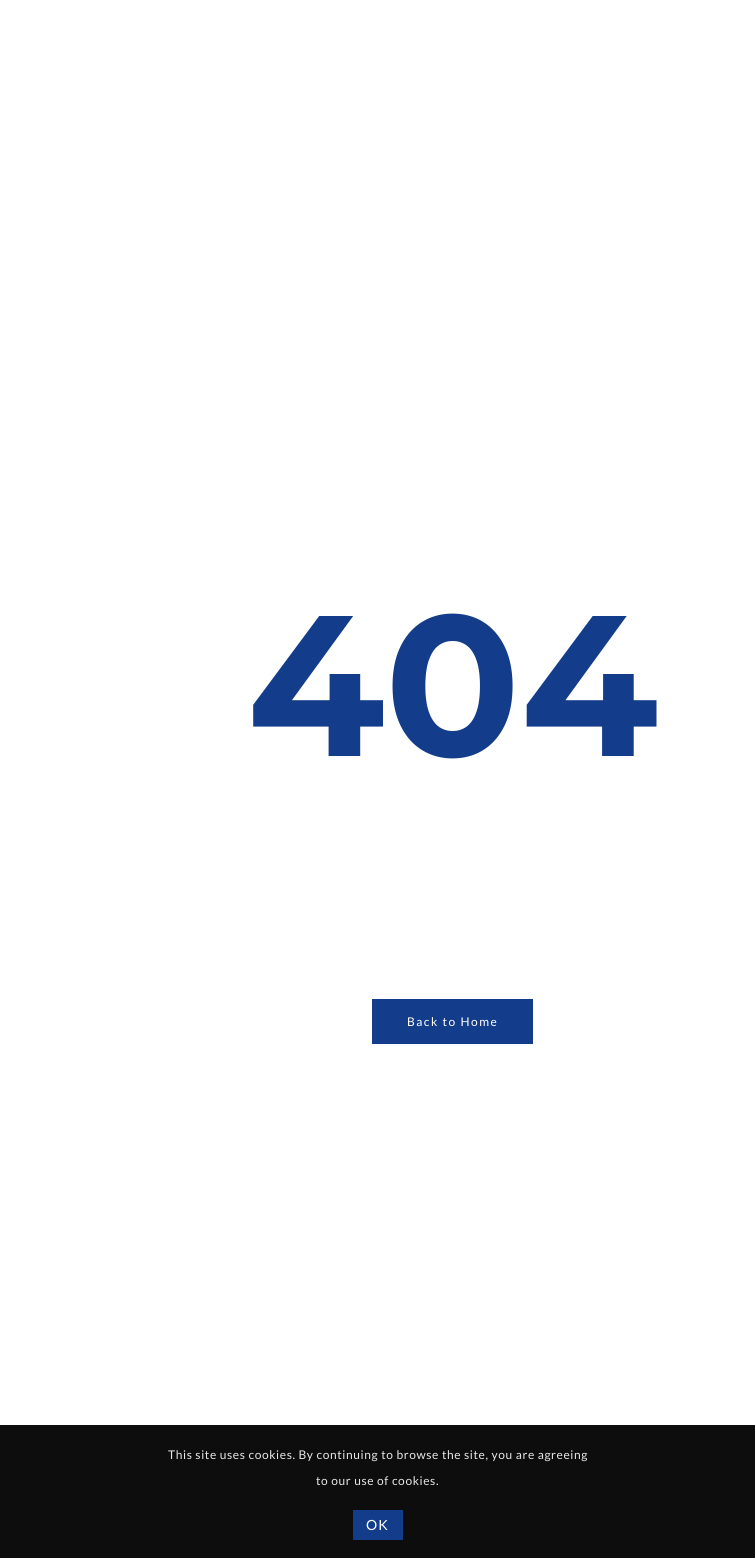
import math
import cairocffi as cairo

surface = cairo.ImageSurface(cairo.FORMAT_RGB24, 755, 1558)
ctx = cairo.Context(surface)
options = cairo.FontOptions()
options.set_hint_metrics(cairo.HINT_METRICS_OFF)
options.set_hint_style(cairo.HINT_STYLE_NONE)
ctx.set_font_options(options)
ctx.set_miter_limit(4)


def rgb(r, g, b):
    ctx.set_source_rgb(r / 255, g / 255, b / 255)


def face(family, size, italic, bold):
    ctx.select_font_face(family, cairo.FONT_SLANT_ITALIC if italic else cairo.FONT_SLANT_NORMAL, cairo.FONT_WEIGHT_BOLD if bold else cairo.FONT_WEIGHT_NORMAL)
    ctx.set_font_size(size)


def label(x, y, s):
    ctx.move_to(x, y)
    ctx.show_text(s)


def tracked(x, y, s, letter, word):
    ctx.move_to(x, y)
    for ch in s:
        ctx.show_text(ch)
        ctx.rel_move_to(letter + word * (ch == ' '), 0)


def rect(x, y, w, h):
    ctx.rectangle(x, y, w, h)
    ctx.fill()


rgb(255, 255, 255)
ctx.paint()
face('Montserrat', 200, 0, 1)
rgb(19, 61, 138)
label(247, 756, '404')
rect(372, 999, 161, 45)
face('Lato', 12, 0, 0)
rgb(255, 255, 255)
tracked(407, 1026, 'Back to Home', 1.5, 0)
rgb(13, 13, 13)
rect(0, 1425, 755, 133)
rgb(231, 231, 231)
tracked(168, 1459, 'This site uses cookies. By continuing to browse the site, you are agreeing', 0.6, 0)
tracked(316, 1485, 'to our use of cookies.', 0.6, 0)
rgb(19, 61, 138)
rect(353, 1510, 50, 30)
face('Lato', 14, 0, 0)
rgb(255, 255, 255)
tracked(366, 1530, 'OK', 1, 0)
surface.write_to_png('render.png')
